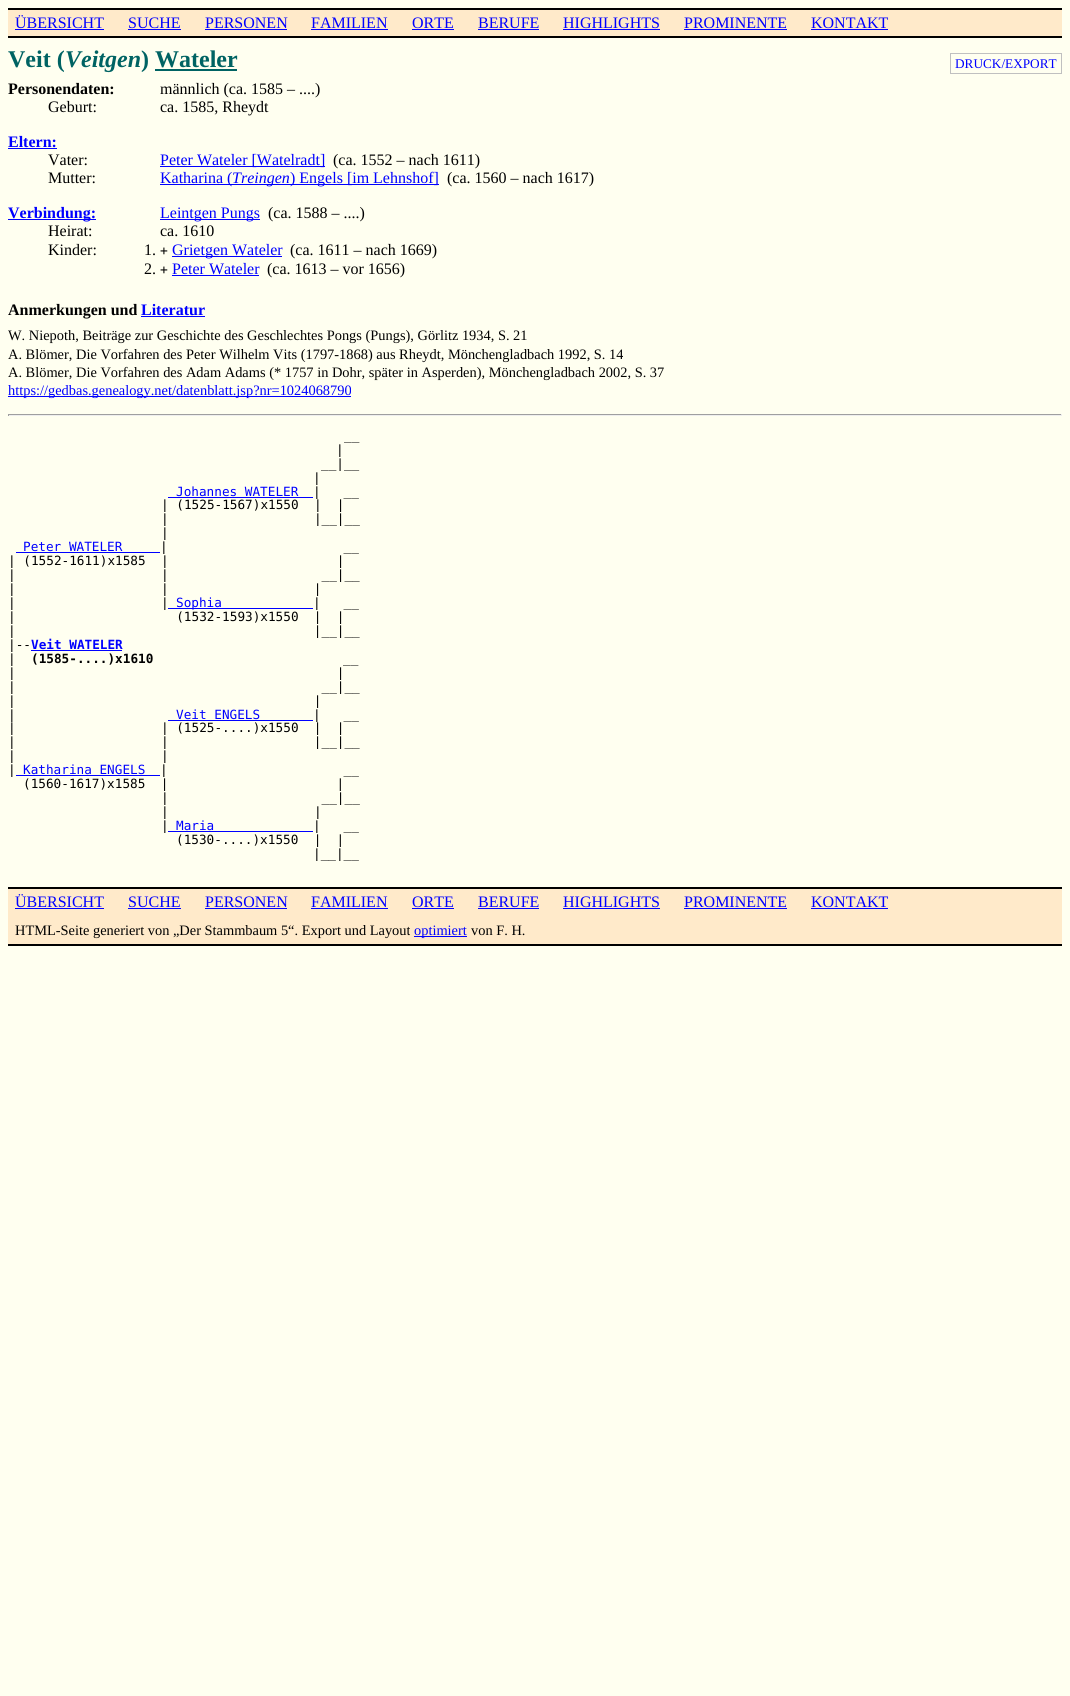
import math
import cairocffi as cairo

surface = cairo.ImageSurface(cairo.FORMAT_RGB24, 1070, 1696)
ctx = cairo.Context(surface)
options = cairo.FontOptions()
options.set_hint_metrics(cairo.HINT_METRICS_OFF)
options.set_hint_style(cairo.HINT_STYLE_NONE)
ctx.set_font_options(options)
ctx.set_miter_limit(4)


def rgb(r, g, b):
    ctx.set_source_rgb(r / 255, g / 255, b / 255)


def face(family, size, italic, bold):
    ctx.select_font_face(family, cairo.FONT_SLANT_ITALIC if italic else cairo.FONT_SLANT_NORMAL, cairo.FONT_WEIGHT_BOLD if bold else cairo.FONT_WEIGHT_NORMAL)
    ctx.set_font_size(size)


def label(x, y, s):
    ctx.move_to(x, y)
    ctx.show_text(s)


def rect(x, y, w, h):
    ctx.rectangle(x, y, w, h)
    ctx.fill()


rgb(255, 255, 240)
ctx.paint()
rgb(255, 234, 202)
rect(8, 10, 1054, 26)
rgb(0, 0, 0)
rect(8, 8, 1054, 2)
rect(8, 36, 1054, 2)
face('Liberation Serif', 16, 0, 0)
rgb(0, 0, 255)
label(15, 28, 'ÜBERSICHT')
rect(15, 29, 89, 1)
label(128, 28, 'SUCHE')
rect(128, 29, 53, 1)
label(205, 28, 'PERSONEN')
rect(205, 29, 82, 1)
label(311, 28, 'FAMILIEN')
rect(311, 29, 77, 1)
label(412, 28, 'ORTE')
rect(412, 29, 42, 1)
label(478, 28, 'BERUFE')
rect(478, 29, 61, 1)
label(563, 28, 'HIGHLIGHTS')
rect(563, 29, 97, 1)
label(684, 28, 'PROMINENTE')
rect(684, 29, 103, 1)
label(811, 28, 'KONTAKT')
rect(811, 29, 77, 1)
face('Liberation Serif', 24, 0, 1)
rgb(0, 99, 99)
label(8, 67, 'Veit (')
face('Liberation Serif', 24, 1, 1)
label(65, 67, 'Veitgen')
face('Liberation Serif', 24, 0, 1)
label(141, 67, ') Wateler')
rect(155, 69, 82, 2)
ctx.rectangle(950.5, 53.5, 111, 20)
rgb(192, 192, 192)
ctx.set_line_width(1)
ctx.stroke()
face('Liberation Serif', 13.25, 0, 0)
rgb(0, 0, 255)
label(955, 68, 'DRUCK/EXPORT')
face('Liberation Serif', 16, 0, 1)
rgb(0, 0, 0)
label(8, 94, 'Personendaten:')
face('Liberation Serif', 16, 0, 0)
label(160, 94, 'männlich (ca. 1585 – ....)')
label(48, 112, 'Geburt:')
label(160, 112, 'ca. 1585, Rheydt')
face('Liberation Serif', 16, 0, 1)
rgb(0, 0, 255)
label(8, 147, 'Eltern:')
rect(8, 148, 49, 1)
face('Liberation Serif', 16, 0, 0)
rgb(0, 0, 0)
label(48, 165, 'Vater:')
rgb(0, 0, 255)
rect(160, 166, 165, 1)
label(160, 165, 'Peter Wateler [Watelradt]')
rgb(0, 0, 0)
label(333, 165, '(ca. 1552 – nach 1611)')
label(48, 183, 'Mutter:')
rgb(0, 0, 255)
rect(160, 184, 279, 1)
label(160, 183, 'Katharina (')
face('Liberation Serif', 16, 1, 0)
label(232, 183, 'Treingen')
face('Liberation Serif', 16, 0, 0)
label(290, 183, ') Engels [im Lehnshof]')
rgb(0, 0, 0)
label(447, 183, '(ca. 1560 – nach 1617)')
rgb(0, 0, 255)
rect(8, 219, 88, 1)
face('Liberation Serif', 16, 0, 1)
label(8, 218, 'Verbindung:')
rect(160, 219, 100, 1)
face('Liberation Serif', 16, 0, 0)
label(160, 218, 'Leintgen Pungs')
rgb(0, 0, 0)
label(268, 218, '(ca. 1588 – ....)')
label(48, 236, 'Heirat:')
label(160, 236, 'ca. 1610')
label(48, 255, 'Kinder:')
label(144, 255, '1.')
face('DejaVu Sans Mono', 13, 0, 0)
label(160, 255, '+')
rgb(0, 0, 255)
rect(172, 256, 110, 1)
face('Liberation Serif', 16, 0, 0)
label(172, 255, 'Grietgen Wateler')
rgb(0, 0, 0)
label(290, 255, '(ca. 1611 – nach 1669)')
label(144, 274, '2.')
face('DejaVu Sans Mono', 13, 0, 0)
label(160, 274, '+')
face('Liberation Serif', 16, 0, 0)
rgb(0, 0, 255)
label(172, 274, 'Peter Wateler')
rect(172, 275, 87, 1)
rgb(0, 0, 0)
label(267, 274, '(ca. 1613 – vor 1656)')
face('Liberation Serif', 16, 0, 1)
label(8, 315, 'Anmerkungen und')
rgb(0, 0, 255)
label(141, 315, 'Literatur')
rect(141, 316, 64, 1)
face('Liberation Serif', 14.4, 0, 0)
rgb(0, 0, 0)
label(8, 340, 'W. Niepoth, Beiträge zur Geschichte des Geschlechtes Pongs (Pungs), Görlitz 1934, S. 21')
label(8, 359, 'A. Blömer, Die Vorfahren des Peter Wilhelm Vits (1797-1868) aus Rheydt, Mönchengladbach 1992, S. 14')
label(8, 377, 'A. Blömer, Die Vorfahren des Adam Adams (* 1757 in Dohr, später in Asperden), Mönchengladbach 2002, S. 37')
rgb(0, 0, 255)
rect(8, 396, 343, 1)
label(8, 395, 'https://gedbas.genealogy.net/datenblatt.jsp?nr=1024068790')
rgb(159, 159, 159)
rect(8, 414, 1054, 1)
rgb(238, 238, 238)
rect(1061, 414, 1, 2)
rect(8, 415, 1054, 1)
rgb(159, 159, 159)
rect(8, 414, 1, 2)
face('DejaVu Sans Mono', 12.7, 0, 0)
rgb(0, 0, 0)
label(344, 440, '__')
label(336, 454, '|')
label(321, 468, '__|__')
label(313, 482, '|')
rgb(0, 0, 255)
label(176, 496, 'Johannes WATELER')
rect(168, 497, 145, 1)
rgb(0, 0, 0)
label(313, 496, '|   __')
label(161, 509, '| (1525-1567)x1550  |  |')
label(161, 523, '|                   |__|__')
label(161, 537, '|')
rgb(0, 0, 255)
label(23, 551, 'Peter WATELER')
rect(16, 552, 144, 1)
rgb(0, 0, 0)
label(160, 551, '|                       __')
label(8, 565, '| (1552-1611)x1585  |                      |')
label(8, 579, '|                   |                    __|__')
label(8, 593, '|                   |                   |')
label(8, 607, '|                   |')
rgb(0, 0, 255)
rect(168, 608, 145, 1)
label(176, 607, 'Sophia')
rgb(0, 0, 0)
label(313, 607, '|   __')
label(8, 621, '|                     (1532-1593)x1550  |  |')
label(8, 635, '|                                       |__|__')
label(8, 649, '|--')
face('DejaVu Sans Mono', 12.7, 0, 1)
rgb(0, 0, 255)
label(31, 649, 'Veit WATELER')
rect(31, 650, 91, 1)
face('DejaVu Sans Mono', 12.7, 0, 0)
rgb(0, 0, 0)
label(8, 663, '|')
face('DejaVu Sans Mono', 12.7, 0, 1)
label(31, 663, '(1585-....)x1610')
face('DejaVu Sans Mono', 12.7, 0, 0)
label(343, 663, '__')
label(8, 677, '|                                          |')
label(8, 691, '|                                        __|__')
label(8, 705, '|                                       |')
label(8, 719, '|')
rgb(0, 0, 255)
label(176, 719, 'Veit ENGELS')
rect(168, 720, 145, 1)
rgb(0, 0, 0)
label(313, 719, '|   __')
label(8, 732, '|                   | (1525-....)x1550  |  |')
label(8, 746, '|                   |                   |__|__')
label(8, 760, '|                   |')
label(8, 774, '|')
rgb(0, 0, 255)
label(23, 774, 'Katharina ENGELS')
rect(16, 775, 144, 1)
rgb(0, 0, 0)
label(160, 774, '|                       __')
label(23, 788, '(1560-1617)x1585  |                      |')
label(161, 802, '|                    __|__')
label(161, 816, '|                   |')
label(161, 830, '|')
rgb(0, 0, 255)
label(176, 830, 'Maria')
rect(168, 831, 145, 1)
rgb(0, 0, 0)
label(313, 830, '|   __')
label(176, 844, '(1530-....)x1550  |  |')
label(313, 858, '|__|__')
rgb(255, 234, 202)
rect(8, 889, 1054, 55)
rgb(0, 0, 0)
rect(8, 887, 1054, 2)
rect(8, 944, 1054, 2)
face('Liberation Serif', 16, 0, 0)
rgb(0, 0, 255)
label(15, 907, 'ÜBERSICHT')
rect(15, 908, 89, 1)
label(128, 907, 'SUCHE')
rect(128, 908, 53, 1)
label(205, 907, 'PERSONEN')
rect(205, 908, 82, 1)
label(311, 907, 'FAMILIEN')
rect(311, 908, 77, 1)
label(412, 907, 'ORTE')
rect(412, 908, 42, 1)
label(478, 907, 'BERUFE')
rect(478, 908, 61, 1)
label(563, 907, 'HIGHLIGHTS')
rect(563, 908, 97, 1)
label(684, 907, 'PROMINENTE')
rect(684, 908, 103, 1)
label(811, 907, 'KONTAKT')
rect(811, 908, 77, 1)
face('Liberation Serif', 14.4, 0, 0)
rgb(0, 0, 0)
label(15, 935, 'HTML-Seite generiert von „Der Stammbaum 5“. Export und Layout')
rgb(0, 0, 255)
rect(414, 936, 53, 1)
label(414, 935, 'optimiert')
rgb(0, 0, 0)
label(471, 935, 'von F. H.')
surface.write_to_png('render.png')
